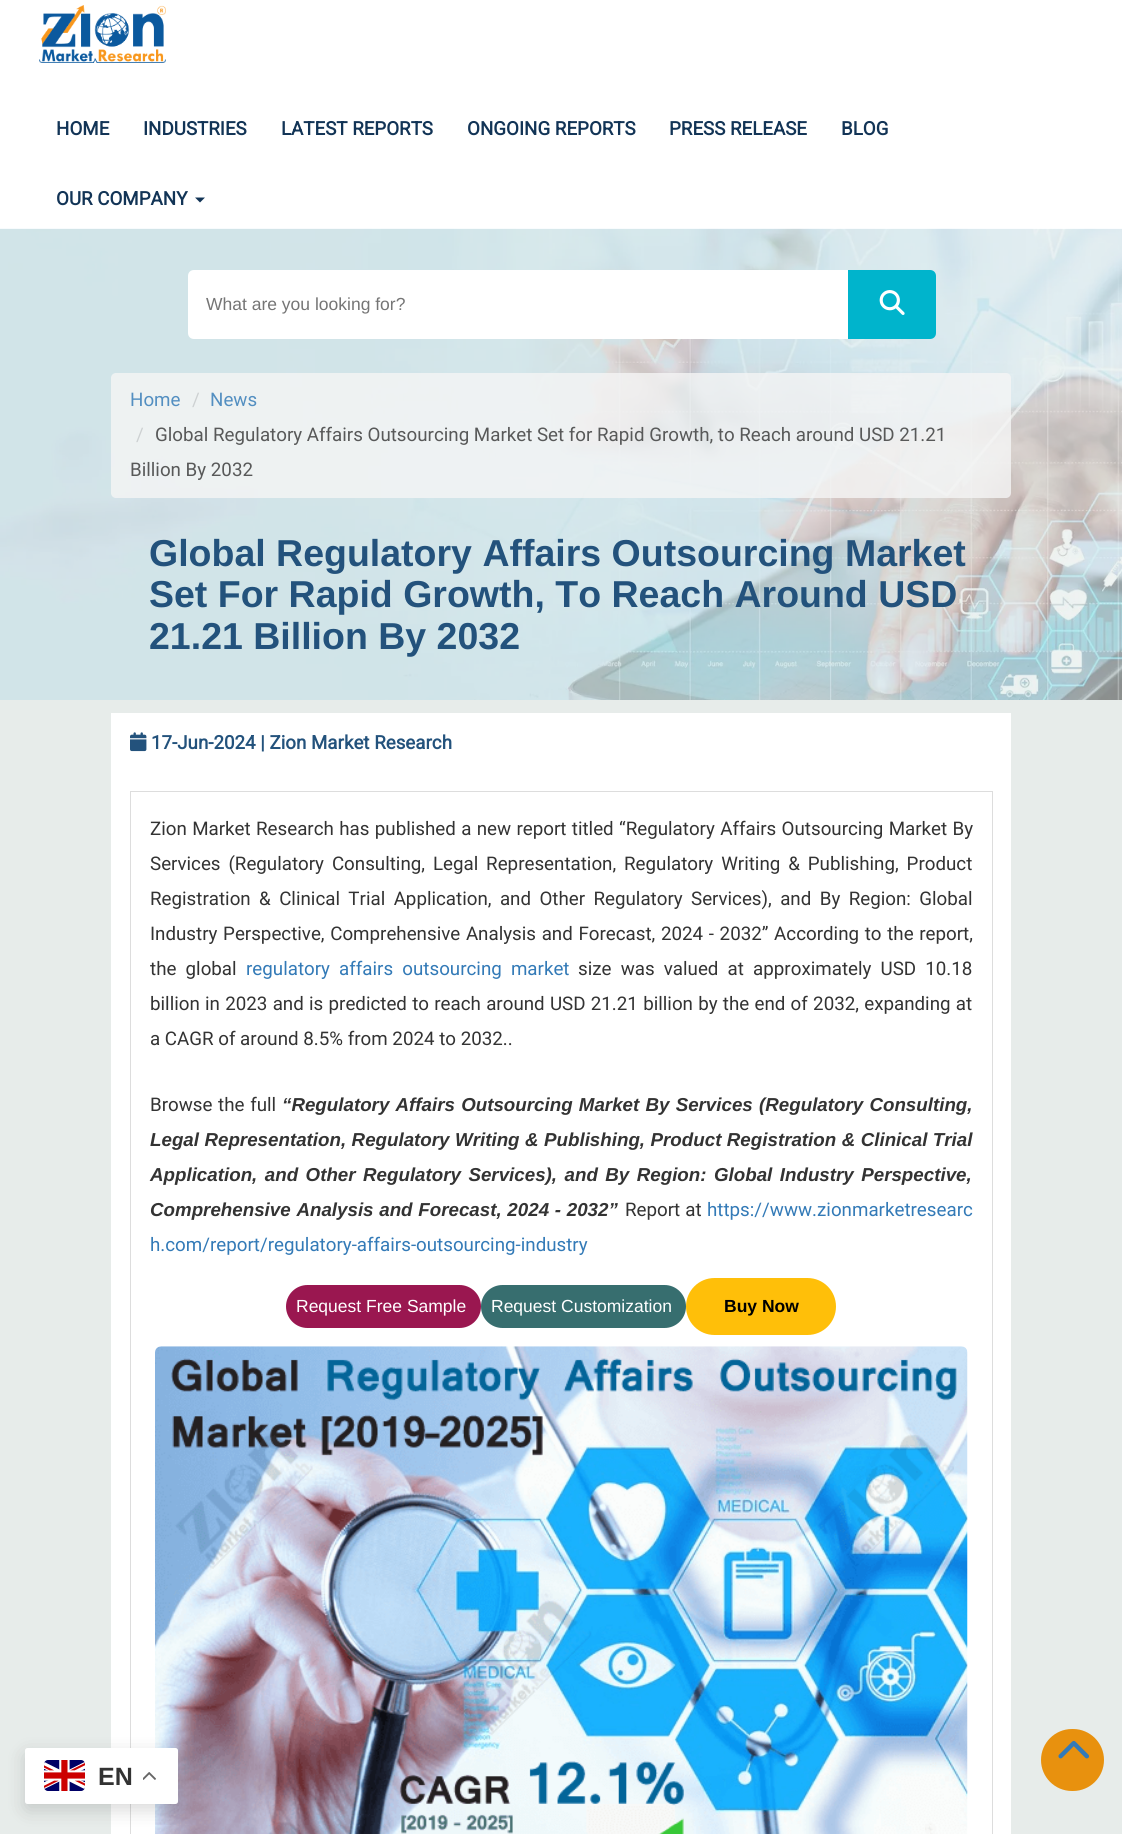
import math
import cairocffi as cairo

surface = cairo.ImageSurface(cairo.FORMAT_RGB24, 1122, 1834)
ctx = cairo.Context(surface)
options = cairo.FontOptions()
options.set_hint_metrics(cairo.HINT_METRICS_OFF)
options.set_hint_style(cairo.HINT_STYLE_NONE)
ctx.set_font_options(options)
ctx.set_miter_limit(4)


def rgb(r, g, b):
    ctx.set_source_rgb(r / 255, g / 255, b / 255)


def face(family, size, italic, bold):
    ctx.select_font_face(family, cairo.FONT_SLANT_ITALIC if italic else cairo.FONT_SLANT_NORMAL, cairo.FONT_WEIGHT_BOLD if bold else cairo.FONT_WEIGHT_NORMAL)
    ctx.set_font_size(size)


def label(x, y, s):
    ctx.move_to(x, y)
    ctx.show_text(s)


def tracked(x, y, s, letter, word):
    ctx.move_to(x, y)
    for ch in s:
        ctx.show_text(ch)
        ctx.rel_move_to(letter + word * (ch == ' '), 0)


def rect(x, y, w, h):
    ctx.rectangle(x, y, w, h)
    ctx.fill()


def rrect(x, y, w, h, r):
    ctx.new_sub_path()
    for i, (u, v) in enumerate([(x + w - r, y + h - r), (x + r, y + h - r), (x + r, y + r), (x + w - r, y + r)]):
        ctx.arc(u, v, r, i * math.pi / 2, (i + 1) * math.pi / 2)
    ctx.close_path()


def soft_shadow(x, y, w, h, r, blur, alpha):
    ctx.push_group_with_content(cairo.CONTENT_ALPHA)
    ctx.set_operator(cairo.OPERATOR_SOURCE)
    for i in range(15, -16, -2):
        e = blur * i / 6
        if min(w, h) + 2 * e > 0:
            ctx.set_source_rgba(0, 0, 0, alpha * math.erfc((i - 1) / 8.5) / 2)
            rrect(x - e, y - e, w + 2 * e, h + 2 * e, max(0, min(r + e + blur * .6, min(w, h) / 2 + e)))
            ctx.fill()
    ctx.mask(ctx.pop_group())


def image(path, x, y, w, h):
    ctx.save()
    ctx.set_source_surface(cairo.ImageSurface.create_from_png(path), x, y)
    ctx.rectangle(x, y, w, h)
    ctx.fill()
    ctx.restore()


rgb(255, 255, 255)
ctx.paint()
image('image0.png', 39, 5, 127, 58)
face('Roboto', 18.75, 0, 1)
rgb(18, 52, 86)
label(56, 135, 'HOME')
label(143, 135, 'INDUSTRIES')
label(281, 135, 'LATEST REPORTS')
label(467, 135, 'ONGOING REPORTS')
label(669, 135, 'PRESS RELEASE')
label(841, 135, 'BLOG')
label(56, 205, 'OUR COMPANY')
ctx.new_path()
ctx.move_to(195, 197.5)
ctx.line_to(205, 197.5)
ctx.line_to(200, 202.5)
ctx.close_path()
ctx.fill()
rgb(231, 236, 234)
rect(0, 229, 1122, 1605)
image('image1.png', 0, 228, 1122, 472)
rgb(255, 255, 255)
ctx.new_path()
ctx.move_to(194, 270)
ctx.line_to(848, 270)
ctx.line_to(848, 339)
ctx.line_to(194, 339)
ctx.curve_to(190.5, 339, 188, 336.5, 188, 333)
ctx.line_to(188, 276)
ctx.curve_to(188, 272.5, 190.5, 270, 194, 270)
ctx.close_path()
ctx.fill()
face('Liberation Sans', 17.5, 0, 0)
rgb(117, 117, 117)
label(206, 310, 'What are you looking for?')
rgb(0, 180, 204)
ctx.new_path()
ctx.move_to(848, 270)
ctx.line_to(930, 270)
ctx.curve_to(933.5, 270, 936, 272.5, 936, 276)
ctx.line_to(936, 333)
ctx.curve_to(936, 336.5, 933.5, 339, 930, 339)
ctx.line_to(848, 339)
ctx.close_path()
ctx.fill()
image('image2.png', 879, 290, 26, 25)
ctx.set_source_rgba(0.961, 0.961, 0.961, 0.8)
rrect(111, 373, 900, 125, 5)
ctx.fill()
face('Roboto', 18.75, 0, 0)
rgb(83, 143, 193)
label(130, 406, 'Home')
rgb(205, 209, 210)
label(192, 406, '/')
rgb(83, 143, 193)
label(210, 406, 'News')
rgb(205, 209, 210)
label(136, 441, '/')
rgb(88, 89, 89)
label(155, 441, 'Global Regulatory Affairs Outsourcing Market Set for Rapid Growth, to Reach around USD 21.21')
label(130, 476, 'Billion By 2032')
face('Liberation Sans', 37.5, 0, 1)
rgb(35, 82, 124)
label(149, 566, 'Global Regulatory Affairs Outsourcing Market')
label(149, 607, 'Set For Rapid Growth, To Reach Around USD')
label(149, 649, '21.21 Billion By 2032')
rgb(255, 255, 255)
rect(111, 713, 900, 1121)
image('image3.png', 130, 732, 17, 20)
face('Roboto', 18.75, 0, 1)
rgb(35, 82, 124)
label(151, 749, '17-Jun-2024 | Zion Market Research')
ctx.rectangle(130.5, 791.5, 862, 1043)
rgb(221, 221, 221)
ctx.set_line_width(1)
ctx.stroke()
face('Roboto', 18.75, 0, 0)
rgb(51, 51, 51)
tracked(150, 835, 'Zion Market Research has published a new report titled “Regulatory Affairs Outsourcing Market By', 0, 0.7)
tracked(150, 870, 'Services (Regulatory Consulting, Legal Representation, Regulatory Writing & Publishing, Product', 0, 3.25)
tracked(150, 905, 'Registration & Clinical Trial Application, and Other Regulatory Services), and By Region: Global', 0, 3.75)
tracked(150, 940, 'Industry Perspective, Comprehensive Analysis and Forecast, 2024 - 2032” According to the report,', 0, 1)
tracked(150, 975, 'the global', 0, 4.5)
rgb(51, 122, 183)
tracked(246, 975, 'regulatory affairs outsourcing market', 0, 4.5)
rgb(51, 51, 51)
tracked(578, 975, 'size was valued at approximately USD 10.18', 0, 4.5)
tracked(150, 1010, 'billion in 2023 and is predicted to reach around USD 21.21 billion by the end of 2032, expanding at', 0, 0.6)
label(150, 1045, 'a CAGR of around 8.5% from 2024 to 2032..')
tracked(150, 1111, 'Browse the full', 0, 1)
face('Liberation Sans', 18.75, 1, 1)
tracked(282, 1111, '“Regulatory Affairs Outsourcing Market By Services (Regulatory Consulting,', 0, 1)
tracked(150, 1146, 'Legal Representation, Regulatory Writing & Publishing, Product Registration & Clinical Trial', 0, 0.25)
tracked(150, 1181, 'Application, and Other Regulatory Services), and By Region: Global Industry Perspective,', 0, 2.25)
tracked(150, 1216, 'Comprehensive Analysis and Forecast, 2024 - 2032”', 0, 0.5)
face('Roboto', 18.75, 0, 0)
tracked(625, 1216, 'Report at', 0, 0.5)
rgb(51, 122, 183)
label(707, 1216, 'https://www.zionmarketresearc')
label(150, 1251, 'h.com/report/regulatory-affairs-outsourcing-industry')
rgb(154, 23, 80)
rrect(286, 1285, 195, 43, 21.5)
ctx.fill()
face('Liberation Sans', 17.5, 0, 0)
rgb(255, 255, 255)
label(296, 1312, 'Request Free Sample')
rgb(55, 110, 111)
rrect(481, 1285, 205, 43, 21.5)
ctx.fill()
rgb(255, 255, 255)
label(491, 1312, 'Request Customization')
rgb(255, 191, 9)
rrect(686, 1278, 150, 57, 28.5)
ctx.fill()
face('Liberation Sans', 17.5, 0, 1)
rgb(0, 0, 0)
label(724, 1312, 'Buy Now')
image('image4.png', 155, 1346, 813, 488)
rgb(232, 145, 14)
rrect(1041, 1729, 63, 62, 31)
ctx.fill()
image('image5.png', 1058, 1741, 31, 18)
rgb(0, 0, 0)
soft_shadow(25, 1754, 153, 56, 2.5, 9.5, 0.15)
rgb(255, 255, 255)
rrect(25, 1748, 153, 56, 2.5)
ctx.fill()
image('image6.png', 44, 1760, 41, 31)
face('Liberation Sans', 25, 0, 1)
rgb(51, 51, 51)
label(98, 1785, 'EN')
image('image7.png', 143, 1772, 13, 8)
surface.write_to_png('render.png')
